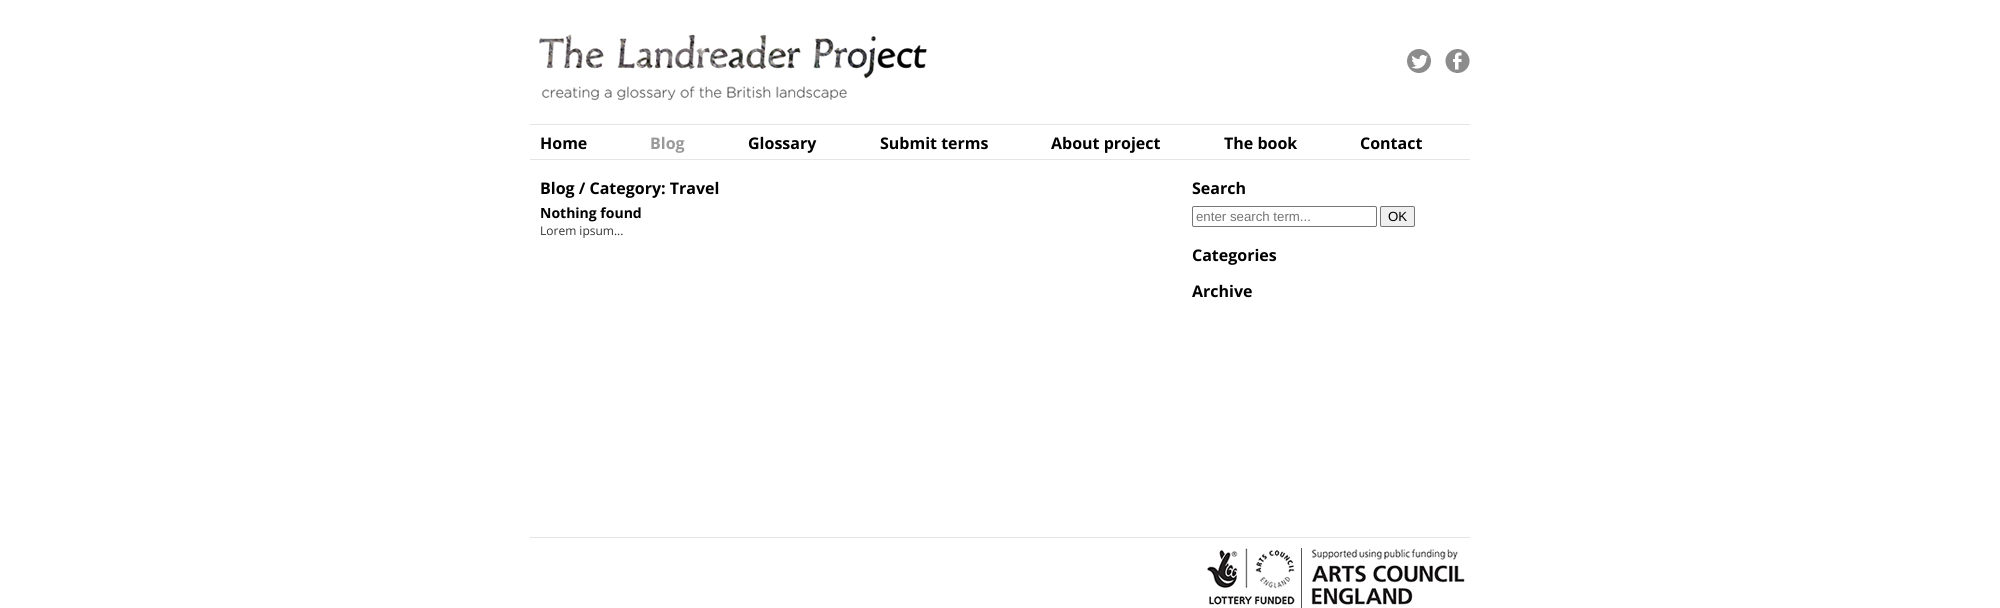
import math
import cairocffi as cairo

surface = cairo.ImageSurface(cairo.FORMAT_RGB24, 2000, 608)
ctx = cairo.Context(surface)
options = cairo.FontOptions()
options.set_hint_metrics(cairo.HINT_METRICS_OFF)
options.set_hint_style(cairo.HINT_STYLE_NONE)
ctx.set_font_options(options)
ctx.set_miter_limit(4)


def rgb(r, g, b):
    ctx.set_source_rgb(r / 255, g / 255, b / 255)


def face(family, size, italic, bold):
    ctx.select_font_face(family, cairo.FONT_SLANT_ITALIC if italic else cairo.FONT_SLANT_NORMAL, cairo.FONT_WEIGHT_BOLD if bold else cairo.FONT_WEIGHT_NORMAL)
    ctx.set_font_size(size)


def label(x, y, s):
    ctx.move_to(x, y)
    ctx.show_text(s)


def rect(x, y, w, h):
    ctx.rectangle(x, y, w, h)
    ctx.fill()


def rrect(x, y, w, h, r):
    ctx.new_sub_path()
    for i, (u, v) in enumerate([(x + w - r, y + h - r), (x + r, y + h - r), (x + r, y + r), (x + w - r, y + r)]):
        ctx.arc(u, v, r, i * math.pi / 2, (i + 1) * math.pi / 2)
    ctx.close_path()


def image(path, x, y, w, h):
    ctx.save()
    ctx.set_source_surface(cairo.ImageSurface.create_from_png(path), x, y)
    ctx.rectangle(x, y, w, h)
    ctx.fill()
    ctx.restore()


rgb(255, 255, 255)
ctx.paint()
image('image0.png', 538, 34, 389, 67)
image('image1.png', 1407, 49, 24, 24)
image('image2.png', 1445, 49, 25, 24)
rgb(229, 229, 229)
rect(530, 124, 940, 1)
rect(530, 159, 940, 1)
face('Open Sans', 16, 0, 1)
rgb(0, 0, 0)
label(540, 149, 'Home')
rgb(153, 153, 153)
label(650, 149, 'Blog')
rgb(0, 0, 0)
label(748, 149, 'Glossary')
label(880, 149, 'Submit terms')
label(1051, 149, 'About project')
label(1224, 149, 'The book')
label(1360, 149, 'Contact')
label(540, 194, 'Blog / Category: Travel')
face('Open Sans', 14, 0, 1)
label(540, 218, 'Nothing found')
face('Open Sans', 12, 0, 0)
rgb(51, 51, 51)
label(540, 235, 'Lorem ipsum...')
face('Open Sans', 16, 0, 1)
rgb(0, 0, 0)
label(1192, 194, 'Search')
rrect(1192.5, 206.5, 184, 20, 1.5)
rgb(118, 118, 118)
ctx.set_line_width(1)
ctx.stroke()
face('Liberation Sans', 13.25, 0, 0)
rgb(117, 117, 117)
label(1196, 221, 'enter search term...')
rgb(239, 239, 239)
rrect(1380.5, 206.5, 34, 20, 1.5)
ctx.fill_preserve()
rgb(118, 118, 118)
ctx.stroke()
rgb(0, 0, 0)
label(1388, 221, 'OK')
face('Open Sans', 16, 0, 1)
label(1192, 261, 'Categories')
label(1192, 297, 'Archive')
rgb(229, 229, 229)
rect(530, 537, 940, 1)
rgb(85, 85, 85)
rect(1301, 548, 1, 60)
image('image3.png', 1207, 548, 88, 57)
image('image4.png', 1311, 549, 154, 56)
surface.write_to_png('render.png')
